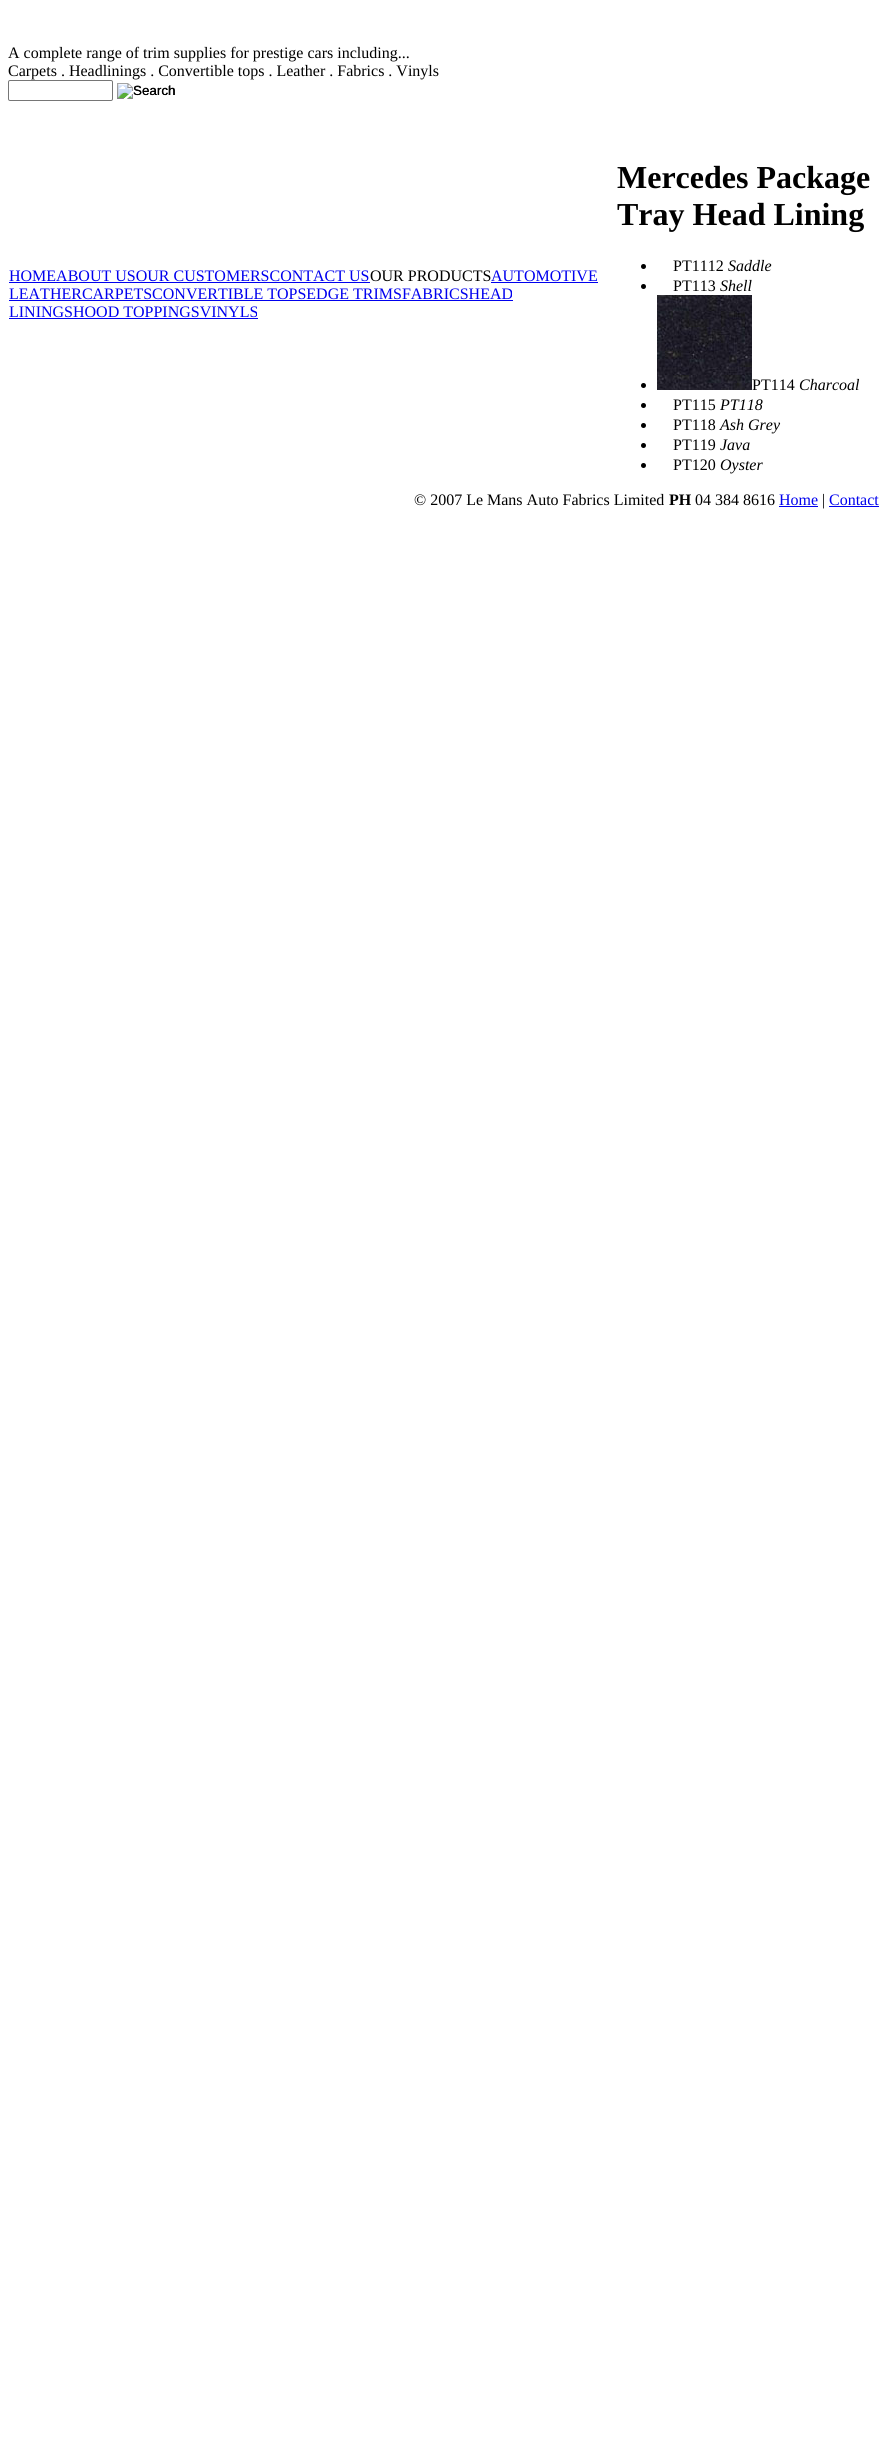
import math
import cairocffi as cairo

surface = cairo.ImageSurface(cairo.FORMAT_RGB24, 887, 2459)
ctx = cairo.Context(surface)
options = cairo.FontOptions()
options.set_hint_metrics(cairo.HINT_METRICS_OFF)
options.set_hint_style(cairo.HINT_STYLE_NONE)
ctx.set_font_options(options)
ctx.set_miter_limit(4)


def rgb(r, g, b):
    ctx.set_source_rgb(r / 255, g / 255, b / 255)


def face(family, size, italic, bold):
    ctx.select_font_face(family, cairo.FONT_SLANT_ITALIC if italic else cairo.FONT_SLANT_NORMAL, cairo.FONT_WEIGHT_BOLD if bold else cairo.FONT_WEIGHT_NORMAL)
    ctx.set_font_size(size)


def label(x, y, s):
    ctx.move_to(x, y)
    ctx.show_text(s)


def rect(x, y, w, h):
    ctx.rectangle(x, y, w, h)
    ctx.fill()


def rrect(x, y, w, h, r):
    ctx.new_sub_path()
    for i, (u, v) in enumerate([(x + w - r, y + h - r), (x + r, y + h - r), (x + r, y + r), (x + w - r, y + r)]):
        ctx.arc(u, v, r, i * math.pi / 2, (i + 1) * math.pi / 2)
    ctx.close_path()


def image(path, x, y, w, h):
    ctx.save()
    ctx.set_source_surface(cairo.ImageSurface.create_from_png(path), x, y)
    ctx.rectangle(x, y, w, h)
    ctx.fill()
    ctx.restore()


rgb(255, 255, 255)
ctx.paint()
face('Liberation Serif', 16, 0, 0)
rgb(0, 0, 0)
label(8, 58, 'A complete range of trim supplies for prestige cars including...')
label(8, 76, 'Carpets . Headlinings . Convertible tops . Leather . Fabrics . Vinyls')
rrect(8.5, 80.5, 104, 20, 1.5)
rgb(118, 118, 118)
ctx.set_line_width(1)
ctx.stroke()
image('image0.png', 117, 83, 58, 16)
face('Liberation Sans', 13.5, 0, 0)
rgb(0, 0, 0)
label(133, 95, 'Search')
face('Liberation Serif', 16, 0, 0)
rgb(0, 0, 238)
label(9, 281, 'HOMEABOUT USOUR CUSTOMERSCONTACT US')
rect(9, 282, 361, 1)
rgb(0, 0, 0)
label(370, 281, 'OUR PRODUCTS')
rgb(0, 0, 238)
label(491, 281, 'AUTOMOTIVE')
rect(491, 282, 107, 1)
label(9, 299, 'LEATHERCARPETSCONVERTIBLE TOPSEDGE TRIMSFABRICSHEAD')
rect(9, 300, 504, 1)
label(9, 317, 'LININGSHOOD TOPPINGSVINYLS')
rect(9, 318, 249, 1)
face('Liberation Serif', 32, 0, 1)
rgb(0, 0, 0)
label(617, 188, 'Mercedes Package')
label(617, 225, 'Tray Head Lining')
ctx.new_path()
ctx.arc(643.5, 266.5, 2.5, 0, 2 * math.pi)
ctx.fill()
face('Liberation Serif', 16, 0, 0)
label(673, 271, 'PT1112')
face('Liberation Serif', 16, 1, 0)
label(728, 271, 'Saddle')
ctx.new_path()
ctx.arc(643.5, 286.5, 2.5, 0, 2 * math.pi)
ctx.fill()
face('Liberation Serif', 16, 0, 0)
label(673, 291, 'PT113')
face('Liberation Serif', 16, 1, 0)
label(720, 291, 'Shell')
ctx.new_path()
ctx.arc(643.5, 385.5, 2.5, 0, 2 * math.pi)
ctx.fill()
image('image1.png', 657, 295, 95, 95)
face('Liberation Serif', 16, 0, 0)
label(752, 390, 'PT114')
face('Liberation Serif', 16, 1, 0)
label(799, 390, 'Charcoal')
ctx.new_path()
ctx.arc(643.5, 405.5, 2.5, 0, 2 * math.pi)
ctx.fill()
face('Liberation Serif', 16, 0, 0)
label(673, 410, 'PT115')
face('Liberation Serif', 16, 1, 0)
label(720, 410, 'PT118')
ctx.new_path()
ctx.arc(643.5, 425.5, 2.5, 0, 2 * math.pi)
ctx.fill()
face('Liberation Serif', 16, 0, 0)
label(673, 430, 'PT118')
face('Liberation Serif', 16, 1, 0)
label(720, 430, 'Ash Grey')
ctx.new_path()
ctx.arc(643.5, 445.5, 2.5, 0, 2 * math.pi)
ctx.fill()
face('Liberation Serif', 16, 0, 0)
label(673, 450, 'PT119')
face('Liberation Serif', 16, 1, 0)
label(720, 450, 'Java')
ctx.new_path()
ctx.arc(643.5, 465.5, 2.5, 0, 2 * math.pi)
ctx.fill()
face('Liberation Serif', 16, 0, 0)
label(673, 470, 'PT120')
face('Liberation Serif', 16, 1, 0)
label(720, 470, 'Oyster')
face('Liberation Serif', 16, 0, 0)
label(414, 505, '© 2007 Le Mans Auto Fabrics Limited')
face('Liberation Serif', 16, 0, 1)
label(669, 505, 'PH')
face('Liberation Serif', 16, 0, 0)
label(695, 505, '04 384 8616')
rgb(0, 0, 238)
label(779, 505, 'Home')
rect(779, 506, 39, 1)
rgb(0, 0, 0)
label(822, 505, '|')
rgb(0, 0, 238)
label(829, 505, 'Contact')
rect(829, 506, 50, 1)
surface.write_to_png('render.png')
